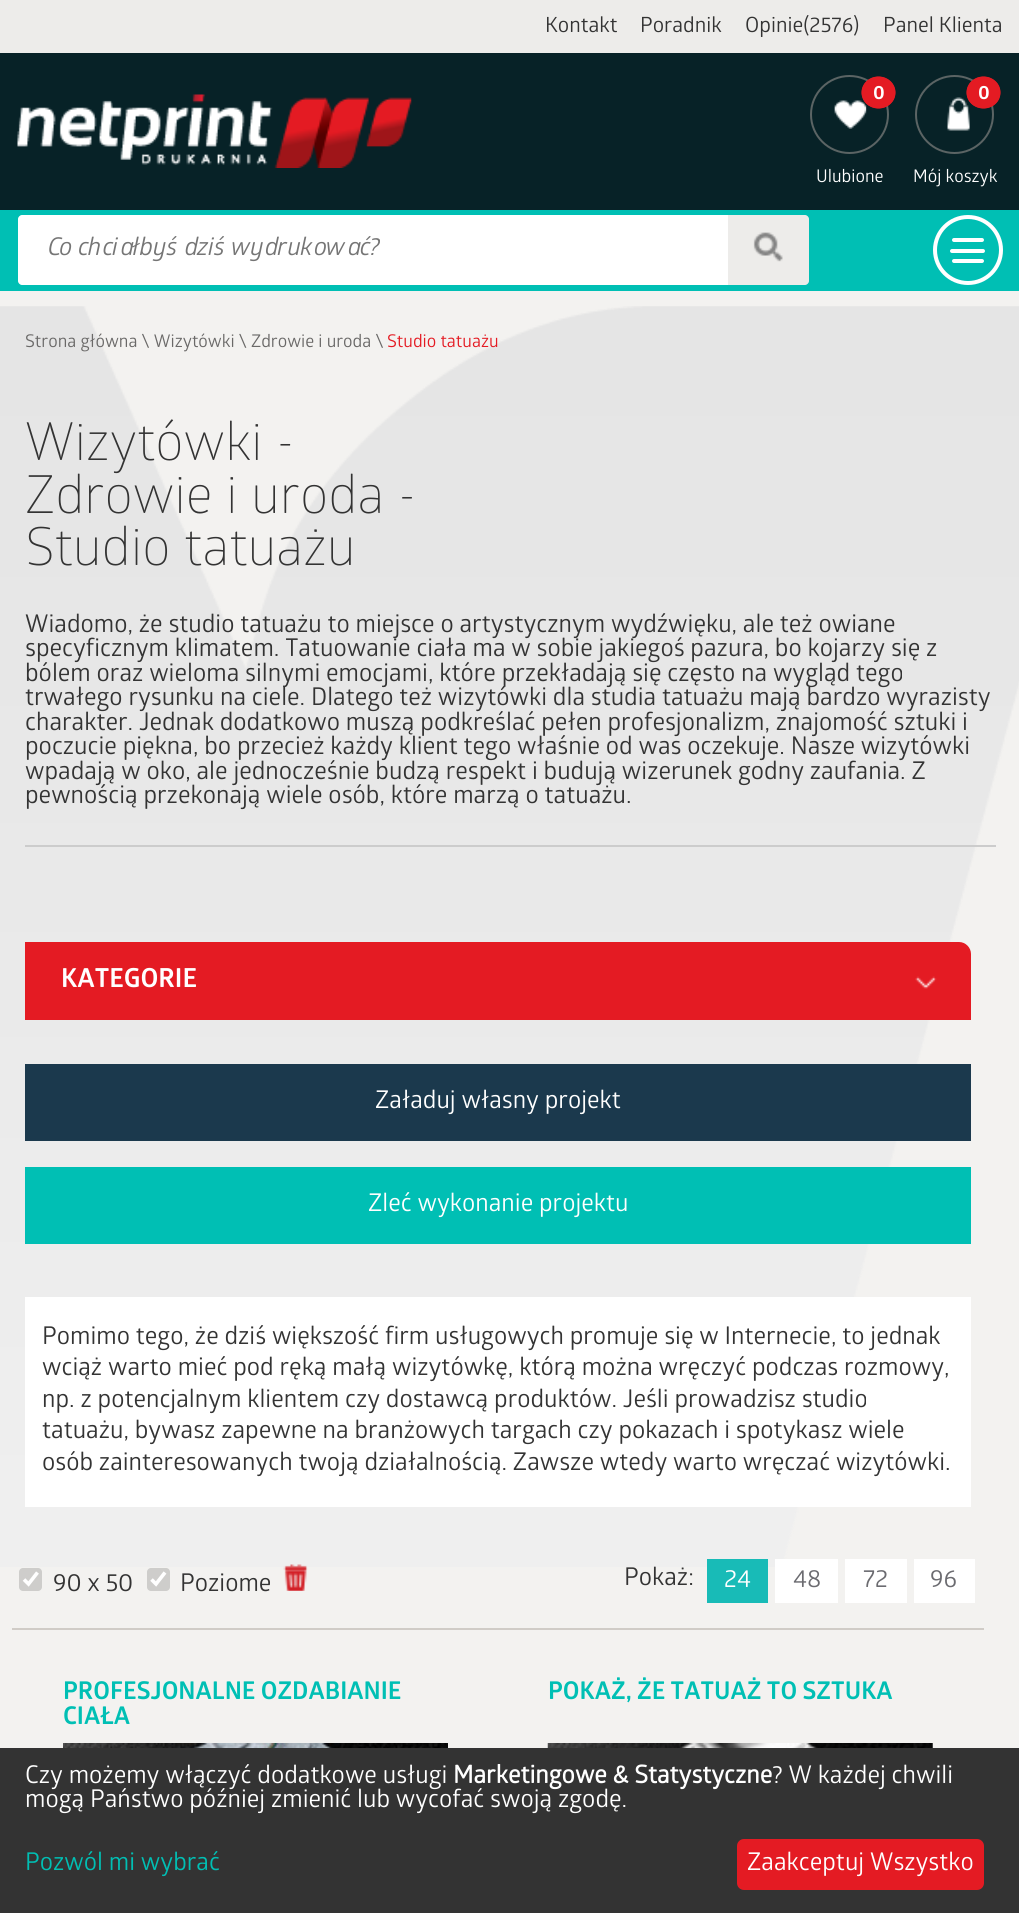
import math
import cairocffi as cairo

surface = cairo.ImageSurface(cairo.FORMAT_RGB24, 1019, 1913)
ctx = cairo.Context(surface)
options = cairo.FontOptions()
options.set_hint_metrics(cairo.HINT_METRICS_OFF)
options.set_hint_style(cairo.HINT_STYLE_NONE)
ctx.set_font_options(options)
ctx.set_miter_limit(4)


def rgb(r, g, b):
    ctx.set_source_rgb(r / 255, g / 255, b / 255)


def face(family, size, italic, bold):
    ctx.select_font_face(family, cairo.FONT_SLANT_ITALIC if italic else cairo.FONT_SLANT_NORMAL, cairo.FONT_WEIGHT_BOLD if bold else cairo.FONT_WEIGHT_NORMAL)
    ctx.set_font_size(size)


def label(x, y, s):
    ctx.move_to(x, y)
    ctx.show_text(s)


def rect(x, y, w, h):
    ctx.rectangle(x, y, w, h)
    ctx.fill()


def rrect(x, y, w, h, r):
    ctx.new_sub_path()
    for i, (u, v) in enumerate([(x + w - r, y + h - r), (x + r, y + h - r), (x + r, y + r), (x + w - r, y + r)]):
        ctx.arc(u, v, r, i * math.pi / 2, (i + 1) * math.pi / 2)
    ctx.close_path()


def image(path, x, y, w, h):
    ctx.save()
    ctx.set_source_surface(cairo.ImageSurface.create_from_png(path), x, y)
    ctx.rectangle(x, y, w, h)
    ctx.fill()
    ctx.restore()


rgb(243, 242, 240)
ctx.paint()
image('image0.png', 0, 306, 1019, 1261)
rgb(237, 236, 234)
rect(0, 0, 1019, 53)
face('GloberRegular', 21, 0, 0)
rgb(51, 51, 51)
label(545, 32, 'Kontakt')
label(640, 32, 'Poradnik')
label(745, 32, 'Opinie(2576)')
label(883, 32, 'Panel Klienta')
rgb(7, 34, 39)
rect(0, 53, 1019, 157)
image('image1.png', 17, 94, 395, 74)
ctx.arc(849.5, 114.5, 38.5, 0, 2 * math.pi)
rgb(91, 100, 100)
ctx.stroke()
image('image2.png', 834, 100, 33, 29)
rgb(228, 27, 35)
ctx.new_path()
ctx.move_to(878.5, 76.5)
ctx.curve_to(888, 76.5, 895.5, 83.5, 895.5, 92.5)
ctx.curve_to(895.5, 101.5, 888, 108.5, 878.5, 108.5)
ctx.curve_to(869, 108.5, 861.5, 101.5, 861.5, 92.5)
ctx.curve_to(861.5, 83.5, 869, 76.5, 878.5, 76.5)
ctx.close_path()
ctx.fill()
ctx.new_path()
ctx.move_to(878.5, 77.5)
ctx.curve_to(887.5, 77.5, 894.5, 84.5, 894.5, 92.5)
ctx.curve_to(894.5, 101, 887.5, 107.5, 878.5, 107.5)
ctx.curve_to(869.5, 107.5, 862.5, 101, 862.5, 92.5)
ctx.curve_to(862.5, 84.5, 869.5, 77.5, 878.5, 77.5)
ctx.close_path()
ctx.set_line_width(1.6)
ctx.stroke()
face('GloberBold', 19, 0, 1)
rgb(255, 255, 255)
label(873, 99, '0')
face('GloberRegular', 17.5, 0, 0)
label(816, 182, 'Ulubione')
ctx.new_path()
ctx.arc(954.5, 114.5, 38.5, 0, 2 * math.pi)
rgb(91, 100, 100)
ctx.set_line_width(2)
ctx.stroke()
image('image3.png', 947, 97, 23, 34)
rgb(228, 27, 35)
ctx.new_path()
ctx.move_to(983.5, 76.5)
ctx.curve_to(993, 76.5, 1000.5, 83.5, 1000.5, 92.5)
ctx.curve_to(1000.5, 101.5, 993, 108.5, 983.5, 108.5)
ctx.curve_to(974, 108.5, 966.5, 101.5, 966.5, 92.5)
ctx.curve_to(966.5, 83.5, 974, 76.5, 983.5, 76.5)
ctx.close_path()
ctx.fill()
ctx.new_path()
ctx.move_to(983.5, 77.5)
ctx.curve_to(992.5, 77.5, 999.5, 84.5, 999.5, 92.5)
ctx.curve_to(999.5, 101, 992.5, 107.5, 983.5, 107.5)
ctx.curve_to(974.5, 107.5, 967.5, 101, 967.5, 92.5)
ctx.curve_to(967.5, 84.5, 974.5, 77.5, 983.5, 77.5)
ctx.close_path()
ctx.set_line_width(1.6)
ctx.stroke()
face('GloberBold', 19, 0, 1)
rgb(255, 255, 255)
label(978, 99, '0')
face('GloberRegular', 17.5, 0, 0)
label(913, 182, 'Mój koszyk')
rgb(0, 191, 180)
rect(0, 210, 1019, 81)
rgb(255, 255, 255)
ctx.new_path()
ctx.move_to(22, 215)
ctx.line_to(728, 215)
ctx.line_to(728, 285)
ctx.line_to(22, 285)
ctx.curve_to(20, 285, 18, 283, 18, 281)
ctx.line_to(18, 219)
ctx.curve_to(18, 217, 20, 215, 22, 215)
ctx.close_path()
ctx.fill()
face('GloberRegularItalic', 24.5, 0, 0)
rgb(117, 117, 117)
label(44, 255, 'Co chciałbyś dziś wydrukować?')
rgb(237, 236, 234)
ctx.new_path()
ctx.move_to(728, 215)
ctx.line_to(805, 215)
ctx.curve_to(807, 215, 809, 217, 809, 219)
ctx.line_to(809, 281)
ctx.curve_to(809, 283, 807, 285, 805, 285)
ctx.line_to(728, 285)
ctx.close_path()
ctx.fill()
image('image4.png', 753, 232, 30, 30)
ctx.arc(968, 250, 33, 0, 2 * math.pi)
rgb(255, 255, 255)
ctx.set_line_width(4)
ctx.stroke()
rrect(952, 238, 32, 4, 2)
ctx.fill()
rrect(950, 249, 35, 4, 2)
ctx.fill()
rrect(952, 259, 32, 4, 2)
ctx.fill()
rgb(204, 204, 204)
rect(25, 845, 971, 2)
face('GloberRegular', 17.5, 0, 0)
rgb(106, 105, 104)
label(25, 347, 'Strona główna \\ Wizytówki \\ Zdrowie i uroda \\')
rgb(228, 27, 35)
label(387, 347, 'Studio tatuażu')
face('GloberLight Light', 52.5, 0, 0)
rgb(51, 51, 51)
label(25, 460, 'Wizytówki -')
label(25, 513, 'Zdrowie i uroda -')
label(25, 565, 'Studio tatuażu')
face('GloberRegular', 24.5, 0, 0)
label(25, 632, 'Wiadomo, że studio tatuażu to miejsce o artystycznym wydźwięku, ale też owiane')
label(25, 656, 'specyficznym klimatem. Tatuowanie ciała ma w sobie jakiegoś pazura, bo kojarzy się z')
label(25, 681, 'bólem oraz wieloma silnymi emocjami, które przekładają się często na wygląd tego')
label(25, 705, 'trwałego rysunku na ciele. Dlatego też wizytówki dla studia tatuażu mają bardzo wyrazisty')
label(25, 730, 'charakter. Jednak dodatkowo muszą podkreślać pełen profesjonalizm, znajomość sztuki i')
label(25, 754, 'poczucie piękna, bo przecież każdy klient tego właśnie od was oczekuje. Nasze wizytówki')
label(25, 779, 'wpadają w oko, ale jednocześnie budzą respekt i budują wizerunek godny zaufania. Z')
label(25, 803, 'pewnością przekonają wiele osób, które marzą o tatuażu.')
rgb(228, 27, 35)
ctx.new_path()
ctx.move_to(25, 942)
ctx.line_to(959, 942)
ctx.curve_to(965.5, 942, 971, 947.5, 971, 954)
ctx.line_to(971, 1020)
ctx.line_to(25, 1020)
ctx.close_path()
ctx.fill()
face('GloberBold', 26.25, 0, 1)
rgb(255, 255, 255)
label(61, 987, 'KATEGORIE')
image('image5.png', 915, 976, 22, 13)
rgb(27, 57, 77)
rect(25, 1064, 946, 77)
face('GloberRegular', 24.5, 0, 0)
rgb(255, 255, 255)
label(375, 1108, 'Załaduj własny projekt')
rgb(0, 191, 180)
rect(25, 1167, 946, 77)
rgb(255, 255, 255)
label(368, 1211, 'Zleć wykonanie projektu')
rect(25, 1297, 946, 210)
rgb(51, 51, 51)
label(42, 1344, 'Pomimo tego, że dziś większość firm usługowych promuje się w Internecie, to jednak')
label(42, 1375, 'wciąż warto mieć pod ręką małą wizytówkę, którą można wręczyć podczas rozmowy,')
label(42, 1407, 'np. z potencjalnym klientem czy dostawcą produktów. Jeśli prowadzisz studio')
label(42, 1438, 'tatuażu, bywasz zapewne na branżowych targach czy pokazach i spotykasz wiele')
label(42, 1470, 'osób zainteresowanych twoją działalnością. Zawsze wtedy warto wręczać wizytówki.')
rgb(206, 205, 203)
rrect(19, 1568, 23, 23, 4)
ctx.fill()
ctx.new_path()
ctx.move_to(24, 1579.5)
ctx.line_to(28.5, 1584)
ctx.line_to(37.5, 1572.5)
rgb(255, 255, 255)
ctx.set_line_width(3.6)
ctx.stroke()
rgb(51, 51, 51)
label(53, 1591, '90 x 50')
rgb(206, 205, 203)
rrect(147, 1568, 23, 23, 4)
ctx.fill()
ctx.new_path()
ctx.move_to(151.5, 1579.5)
ctx.line_to(156, 1584)
ctx.line_to(165, 1572.5)
rgb(255, 255, 255)
ctx.stroke()
rgb(51, 51, 51)
label(180, 1591, 'Poziome')
image('image6.png', 283, 1564, 25, 27)
label(624, 1585, 'Pokaż:')
rgb(24, 187, 183)
rect(707, 1559, 61, 44)
rgb(255, 255, 255)
label(724, 1587, '24')
rect(775, 1559, 63, 44)
rgb(107, 107, 112)
label(793, 1587, '48')
rgb(255, 255, 255)
rect(845, 1559, 62, 44)
rgb(107, 107, 112)
label(863, 1587, '72')
rgb(255, 255, 255)
rect(914, 1559, 61, 44)
rgb(107, 107, 112)
label(930, 1587, '96')
rgb(208, 204, 199)
rect(12, 1628, 972, 2)
face('GloberBold', 24.5, 0, 1)
rgb(0, 191, 180)
label(63, 1699, 'PROFESJONALNE OZDABIANIE')
label(63, 1724, 'CIAŁA')
image('image7.png', 63, 1743, 385, 5)
label(548, 1699, 'POKAŻ, ŻE TATUAŻ TO SZTUKA')
image('image8.png', 547, 1743, 386, 5)
rgb(51, 51, 51)
rect(0, 1748, 1019, 165)
face('GloberRegular', 24.5, 0, 0)
rgb(255, 255, 255)
label(25, 1783, 'Czy możemy włączyć dodatkowe usługi')
face('GloberRegular', 24.5, 0, 1)
label(453, 1783, 'Marketingowe & Statystyczne')
face('GloberRegular', 24.5, 0, 0)
label(772, 1783, '? W każdej chwili')
label(25, 1807, 'mogą Państwo później zmienić lub wycofać swoją zgodę.')
rgb(0, 191, 180)
label(25, 1870, 'Pozwól mi wybrać')
rgb(228, 27, 35)
rrect(737, 1839, 247, 51, 7)
ctx.fill()
rgb(255, 255, 255)
label(747, 1870, 'Zaakceptuj Wszystko')
surface.write_to_png('render.png')
